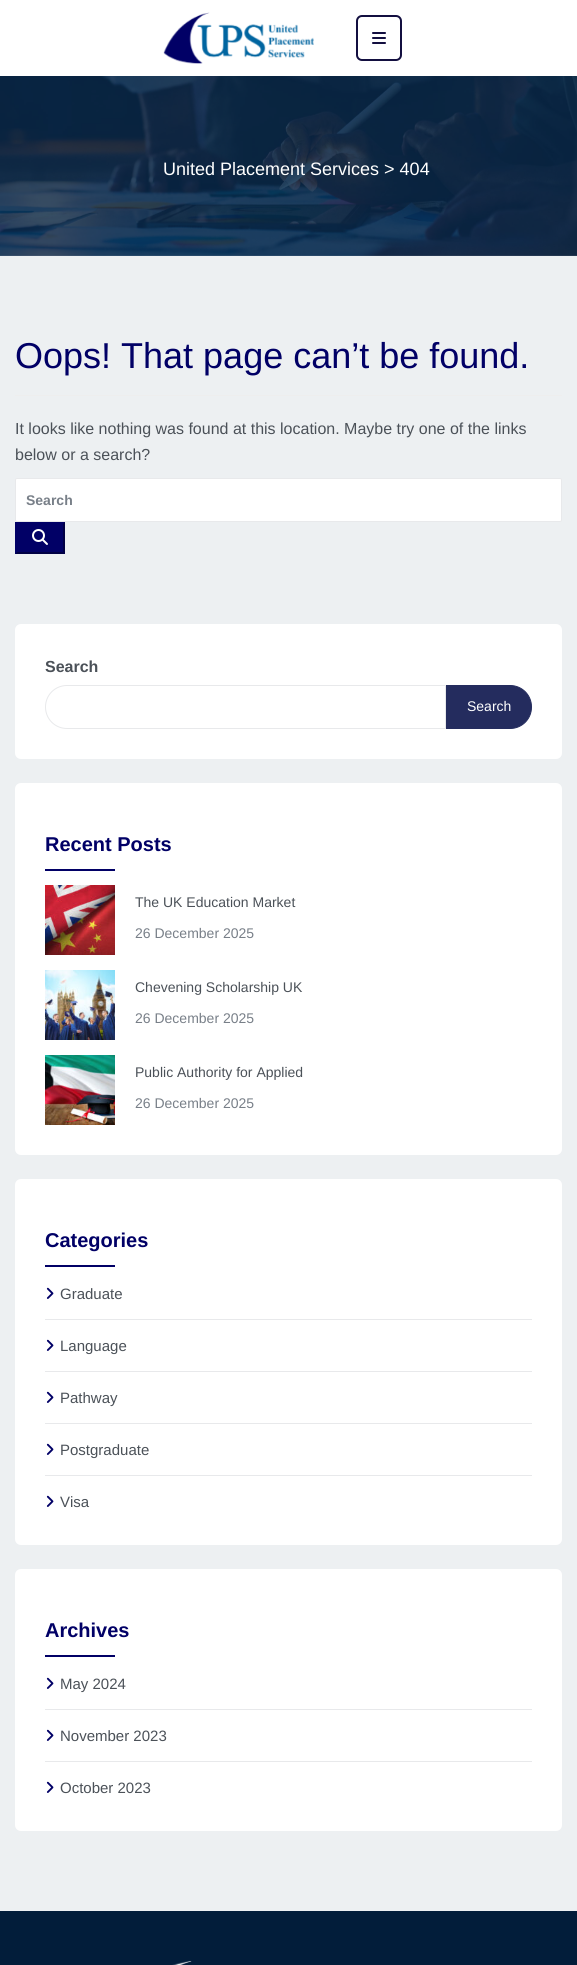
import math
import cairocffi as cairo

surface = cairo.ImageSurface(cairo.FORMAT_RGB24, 577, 1965)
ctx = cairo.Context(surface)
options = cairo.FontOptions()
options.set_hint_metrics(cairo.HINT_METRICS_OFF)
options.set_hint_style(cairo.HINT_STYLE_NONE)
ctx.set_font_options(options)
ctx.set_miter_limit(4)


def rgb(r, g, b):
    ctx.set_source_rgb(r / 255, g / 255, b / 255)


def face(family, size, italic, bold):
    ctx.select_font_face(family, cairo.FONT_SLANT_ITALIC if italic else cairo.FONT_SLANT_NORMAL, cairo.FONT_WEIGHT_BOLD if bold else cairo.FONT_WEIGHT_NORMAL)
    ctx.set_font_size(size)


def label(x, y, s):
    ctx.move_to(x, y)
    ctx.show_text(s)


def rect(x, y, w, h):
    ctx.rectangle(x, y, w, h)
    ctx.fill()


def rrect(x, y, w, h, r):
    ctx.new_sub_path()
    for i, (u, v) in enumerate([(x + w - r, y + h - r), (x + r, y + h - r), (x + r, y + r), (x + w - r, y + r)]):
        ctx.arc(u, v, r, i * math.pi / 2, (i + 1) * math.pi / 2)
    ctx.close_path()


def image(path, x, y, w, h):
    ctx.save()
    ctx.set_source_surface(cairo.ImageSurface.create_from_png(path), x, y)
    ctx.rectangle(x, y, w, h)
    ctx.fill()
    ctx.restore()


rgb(255, 255, 255)
ctx.paint()
image('image0.png', 163, 12, 151, 52)
image('image1.png', 372, 32, 14, 12)
rrect(357, 16, 44, 44, 5)
rgb(19, 15, 64)
ctx.stroke()
image('image2.png', 0, 76, 577, 180)
face('Liberation Sans', 18, 0, 0)
rgb(255, 255, 255)
label(163, 175, 'United Placement Services > 404')
rgb(237, 240, 242)
rect(0, 256, 577, 1655)
rgb(238, 238, 238)
rect(15, 395, 547, 1)
face('Liberation Sans', 36, 0, 0)
rgb(1, 0, 102)
label(15, 368, 'Oops! That page can’t be found.')
face('Liberation Sans', 16, 0, 0)
rgb(75, 81, 88)
label(15, 434, 'It looks like nothing was found at this location. Maybe try one of the links')
label(15, 460, 'below or a search?')
rgb(255, 255, 255)
rrect(15.5, 478.5, 546, 43, 1.5)
ctx.fill_preserve()
rgb(232, 233, 235)
ctx.set_line_width(1)
ctx.stroke()
face('Liberation Sans', 14, 0, 1)
rgb(120, 127, 136)
label(26, 505, 'Search')
rgb(1, 0, 102)
rect(15, 522, 50, 32)
rgb(1, 0, 68)
ctx.new_path()
ctx.move_to(65, 522)
ctx.line_to(65, 554)
ctx.line_to(63, 552)
ctx.line_to(63, 524)
ctx.close_path()
ctx.fill()
ctx.new_path()
ctx.move_to(65, 554)
ctx.line_to(15, 554)
ctx.line_to(17, 552)
ctx.line_to(63, 552)
ctx.close_path()
ctx.fill()
rgb(1, 0, 102)
ctx.new_path()
ctx.move_to(15, 554)
ctx.line_to(15, 522)
ctx.line_to(17, 524)
ctx.line_to(17, 552)
ctx.close_path()
ctx.fill()
image('image3.png', 32, 529, 16, 16)
rgb(255, 255, 255)
rrect(15, 624, 547, 135, 6)
ctx.fill()
face('Liberation Sans', 16, 0, 1)
rgb(75, 81, 88)
label(45, 672, 'Search')
ctx.new_path()
ctx.move_to(67, 685.5)
ctx.line_to(445, 685.5)
ctx.curve_to(445.5, 685.5, 445.5, 685.5, 445.5, 686)
ctx.line_to(445.5, 728)
ctx.curve_to(445.5, 728.5, 445.5, 728.5, 445, 728.5)
ctx.line_to(67, 728.5)
ctx.curve_to(55, 728.5, 45.5, 719, 45.5, 707)
ctx.curve_to(45.5, 695, 55, 685.5, 67, 685.5)
ctx.close_path()
rgb(232, 233, 235)
ctx.stroke()
rgb(36, 44, 94)
ctx.new_path()
ctx.move_to(446.5, 685.5)
ctx.line_to(510, 685.5)
ctx.curve_to(522, 685.5, 531.5, 695, 531.5, 707)
ctx.curve_to(531.5, 719, 522, 728.5, 510, 728.5)
ctx.line_to(446.5, 728.5)
ctx.close_path()
ctx.fill_preserve()
ctx.stroke()
face('Liberation Sans', 14, 0, 0)
rgb(255, 255, 255)
label(467, 711, 'Search')
rrect(15, 783, 547, 372, 6)
ctx.fill()
face('Liberation Sans', 20, 0, 1)
rgb(1, 0, 102)
label(45, 851, 'Recent Posts')
rect(45, 869, 70, 2)
image('image4.png', 45, 885, 70, 70)
face('Liberation Sans', 14, 0, 0)
rgb(75, 81, 88)
label(135, 907, 'The UK Education Market')
rgb(120, 127, 136)
label(135, 938, '26 December 2025')
image('image5.png', 45, 970, 70, 70)
rgb(75, 81, 88)
label(135, 992, 'Chevening Scholarship UK')
rgb(120, 127, 136)
label(135, 1023, '26 December 2025')
image('image6.png', 45, 1055, 70, 70)
rgb(75, 81, 88)
label(135, 1077, 'Public Authority for Applied')
rgb(120, 127, 136)
label(135, 1108, '26 December 2025')
rgb(255, 255, 255)
rrect(15, 1179, 547, 366, 6)
ctx.fill()
face('Liberation Sans', 20, 0, 1)
rgb(1, 0, 102)
label(45, 1247, 'Categories')
rect(45, 1265, 70, 2)
rgb(232, 233, 235)
rect(45, 1319, 487, 1)
image('image7.png', 46, 1287, 8, 12)
face('Liberation Sans', 15, 0, 0)
rgb(75, 81, 88)
label(60, 1299, 'Graduate')
rgb(232, 233, 235)
rect(45, 1371, 487, 1)
image('image7.png', 46, 1339, 8, 12)
rgb(75, 81, 88)
label(60, 1351, 'Language')
rgb(232, 233, 235)
rect(45, 1423, 487, 1)
image('image7.png', 46, 1391, 8, 12)
rgb(75, 81, 88)
label(60, 1403, 'Pathway')
rgb(232, 233, 235)
rect(45, 1475, 487, 1)
image('image7.png', 46, 1443, 8, 12)
rgb(75, 81, 88)
label(60, 1455, 'Postgraduate')
image('image7.png', 46, 1495, 8, 12)
label(60, 1507, 'Visa')
rgb(255, 255, 255)
rrect(15, 1569, 547, 262, 6)
ctx.fill()
face('Liberation Sans', 20, 0, 1)
rgb(1, 0, 102)
label(45, 1637, 'Archives')
rect(45, 1655, 70, 2)
rgb(232, 233, 235)
rect(45, 1709, 487, 1)
image('image7.png', 46, 1677, 8, 12)
face('Liberation Sans', 15, 0, 0)
rgb(75, 81, 88)
label(60, 1689, 'May 2024')
rgb(232, 233, 235)
rect(45, 1761, 487, 1)
image('image7.png', 46, 1729, 8, 12)
rgb(75, 81, 88)
label(60, 1741, 'November 2023')
image('image7.png', 46, 1781, 8, 12)
label(60, 1793, 'October 2023')
rgb(2, 29, 58)
rect(0, 1911, 577, 54)
image('image8.png', 172, 1961, 20, 4)
surface.write_to_png('render.png')
